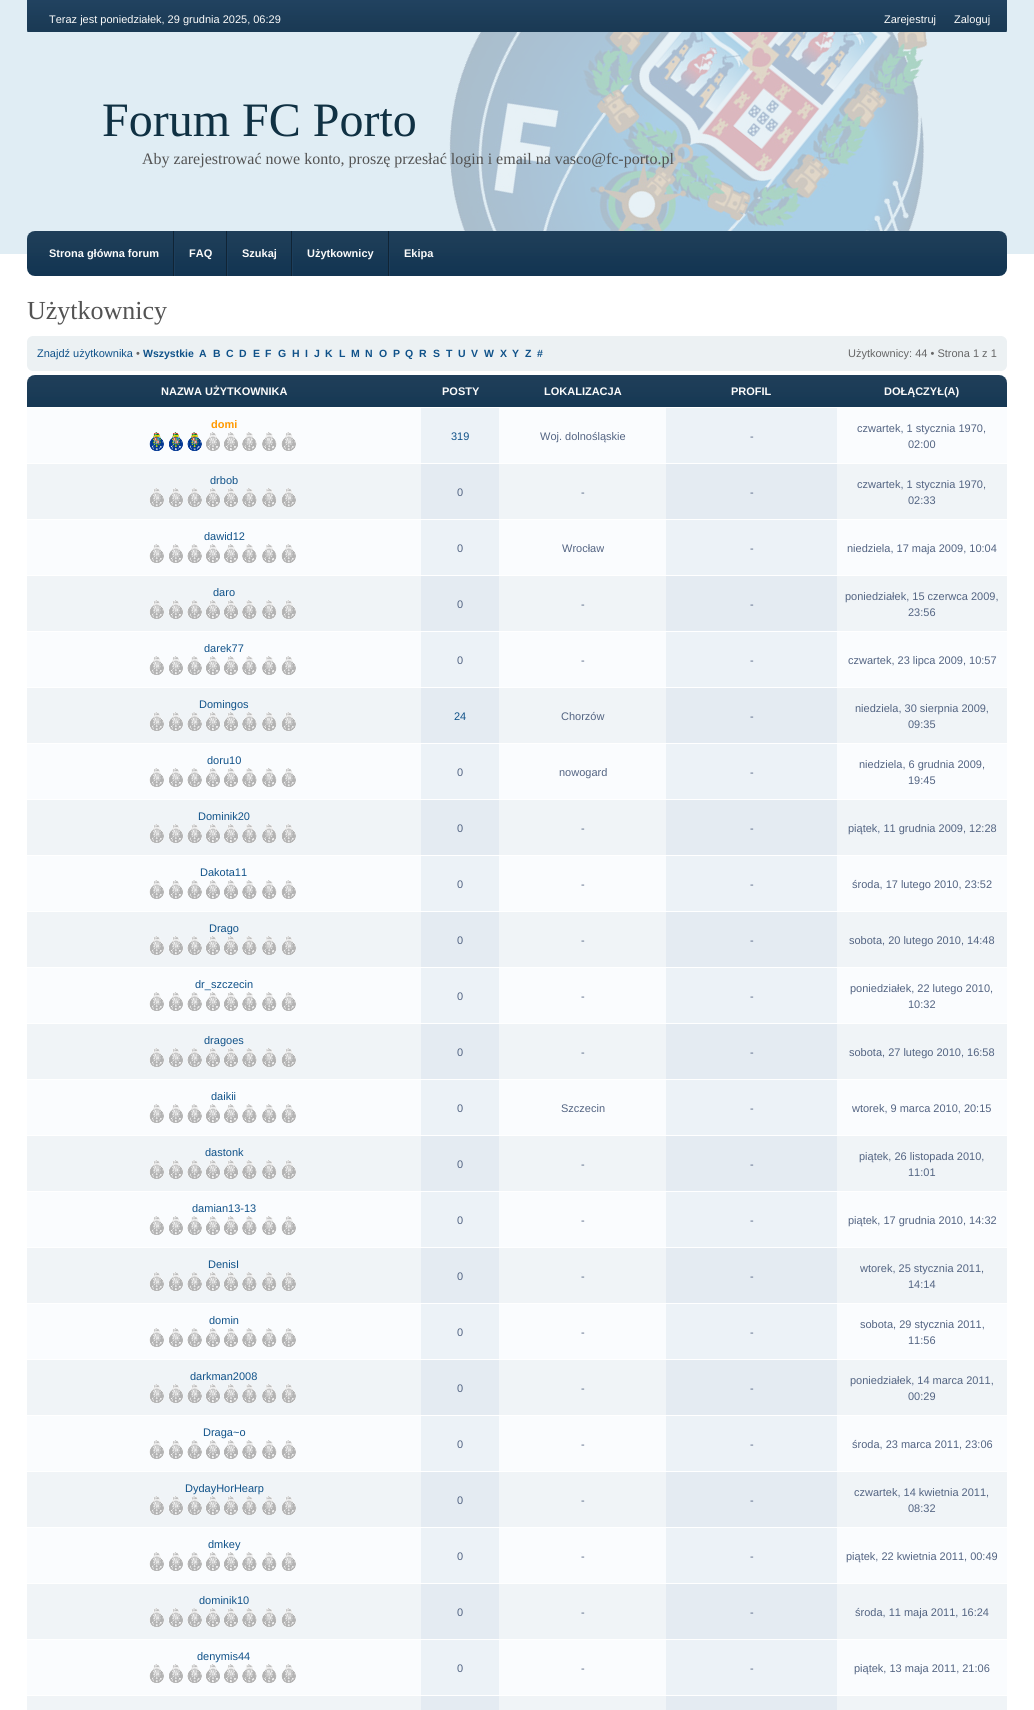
import math
import cairocffi as cairo

surface = cairo.ImageSurface(cairo.FORMAT_RGB24, 1034, 1710)
ctx = cairo.Context(surface)
options = cairo.FontOptions()
options.set_hint_metrics(cairo.HINT_METRICS_OFF)
options.set_hint_style(cairo.HINT_STYLE_NONE)
ctx.set_font_options(options)
ctx.set_miter_limit(4)


def rgb(r, g, b):
    ctx.set_source_rgb(r / 255, g / 255, b / 255)


def face(family, size, italic, bold):
    ctx.select_font_face(family, cairo.FONT_SLANT_ITALIC if italic else cairo.FONT_SLANT_NORMAL, cairo.FONT_WEIGHT_BOLD if bold else cairo.FONT_WEIGHT_NORMAL)
    ctx.set_font_size(size)


def label(x, y, s):
    ctx.move_to(x, y)
    ctx.show_text(s)


def rect(x, y, w, h):
    ctx.rectangle(x, y, w, h)
    ctx.fill()


def image(path, x, y, w, h):
    ctx.save()
    ctx.set_source_surface(cairo.ImageSurface.create_from_png(path), x, y)
    ctx.rectangle(x, y, w, h)
    ctx.fill()
    ctx.restore()


rgb(255, 255, 255)
ctx.paint()
rgb(224, 237, 244)
rect(0, 0, 1034, 254)
image('image0.png', 27, 0, 980, 32)
face('Liberation Sans', 11, 0, 0)
rgb(251, 251, 251)
label(49, 23, 'Teraz jest poniedziałek, 29 grudnia 2025, 06:29')
label(884, 23, 'Zarejestruj')
label(954, 23, 'Zaloguj')
image('image1.png', 27, 32, 980, 199)
face('Liberation Serif', 48, 0, 0)
rgb(16, 49, 67)
label(102, 136, 'Forum FC Porto')
face('Liberation Serif', 16, 0, 0)
rgb(83, 83, 83)
label(142, 164, 'Aby zarejestrować nowe konto, proszę przesłać login i email na vasco@fc-porto.pl')
image('image2.png', 27, 231, 980, 45)
rgb(16, 36, 53)
rect(173, 231, 1, 45)
face('Liberation Sans', 11, 0, 1)
rgb(251, 251, 251)
label(49, 257, 'Strona główna forum')
rgb(16, 36, 53)
rect(226, 231, 1, 45)
rgb(28, 62, 92)
rect(174, 231, 1, 45)
rgb(251, 251, 251)
label(189, 257, 'FAQ')
rgb(16, 36, 53)
rect(291, 231, 1, 45)
rgb(28, 62, 92)
rect(227, 231, 1, 45)
rgb(251, 251, 251)
label(242, 257, 'Szukaj')
rgb(16, 36, 53)
rect(388, 231, 1, 45)
rgb(28, 62, 92)
rect(292, 231, 1, 45)
rgb(251, 251, 251)
label(307, 257, 'Użytkownicy')
rgb(28, 62, 92)
rect(389, 231, 1, 45)
rgb(251, 251, 251)
label(404, 257, 'Ekipa')
face('Liberation Serif', 26, 0, 0)
rgb(83, 83, 83)
label(27, 319, 'Użytkownicy')
rgb(236, 241, 243)
rect(27, 336, 980, 35)
image('image3.png', 27, 336, 5, 5)
image('image4.png', 1002, 336, 5, 5)
face('Liberation Sans', 11, 0, 0)
rgb(16, 82, 137)
label(37, 357, 'Znajdź użytkownika')
rgb(102, 102, 102)
label(136, 357, '•')
face('Liberation Sans', 10.5, 0, 1)
rgb(16, 82, 137)
label(143, 357, 'Wszystkie')
label(199, 357, 'A')
label(213, 357, 'B')
label(226, 357, 'C')
label(239, 357, 'D')
label(253, 357, 'E')
label(265, 357, 'F')
label(278, 357, 'G')
label(292, 357, 'H')
label(305, 357, 'I')
label(314, 357, 'J')
label(325, 357, 'K')
label(339, 357, 'L')
label(351, 357, 'M')
label(365, 357, 'N')
label(379, 357, 'O')
label(393, 357, 'P')
label(405, 357, 'Q')
label(419, 357, 'R')
label(433, 357, 'S')
label(446, 357, 'T')
label(458, 357, 'U')
label(471, 357, 'V')
label(484, 357, 'W')
label(500, 357, 'X')
label(512, 357, 'Y')
label(525, 357, 'Z')
label(537, 357, '#')
face('Liberation Sans', 11, 0, 0)
rgb(102, 102, 102)
label(848, 357, 'Użytkownicy: 44 • Strona 1 z 1')
image('image5.png', 27, 366, 5, 5)
image('image6.png', 1002, 366, 5, 5)
image('image7.png', 27, 375, 980, 32)
face('Liberation Sans', 11, 0, 1)
rgb(251, 251, 251)
label(161, 395, 'NAZWA UŻYTKOWNIKA')
label(442, 395, 'POSTY')
label(544, 395, 'LOKALIZACJA')
label(731, 395, 'PROFIL')
label(884, 395, 'DOŁĄCZYŁ(A)')
rgb(250, 252, 254)
rect(27, 408, 980, 55)
rgb(255, 153, 0)
label(211, 428, 'domi')
image('image8.png', 149, 432, 147, 19)
rgb(236, 242, 247)
rect(421, 408, 78, 55)
face('Liberation Sans', 11, 0, 0)
rgb(16, 82, 137)
label(451, 440, '319')
rgb(83, 100, 130)
label(540, 440, 'Woj. dolnośląskie')
rgb(236, 242, 247)
rect(666, 408, 171, 55)
rgb(83, 100, 130)
label(750, 440, '-')
label(857, 432, 'czwartek, 1 stycznia 1970,')
label(908, 448, '02:00')
rgb(240, 244, 247)
rect(27, 464, 980, 55)
rgb(16, 82, 137)
label(210, 484, 'drbob')
image('image9.png', 149, 488, 147, 19)
rgb(228, 235, 242)
rect(421, 464, 78, 55)
rgb(83, 100, 130)
label(457, 496, '0')
label(581, 496, '-')
rgb(228, 235, 242)
rect(666, 464, 171, 55)
rgb(83, 100, 130)
label(750, 496, '-')
label(857, 488, 'czwartek, 1 stycznia 1970,')
label(908, 504, '02:33')
rgb(250, 252, 254)
rect(27, 520, 980, 55)
rgb(16, 82, 137)
label(204, 540, 'dawid12')
image('image10.png', 149, 544, 147, 19)
rgb(236, 242, 247)
rect(421, 520, 78, 55)
rgb(83, 100, 130)
label(457, 552, '0')
label(562, 552, 'Wrocław')
rgb(236, 242, 247)
rect(666, 520, 171, 55)
rgb(83, 100, 130)
label(750, 552, '-')
label(847, 552, 'niedziela, 17 maja 2009, 10:04')
rgb(240, 244, 247)
rect(27, 576, 980, 55)
rgb(16, 82, 137)
label(213, 596, 'daro')
image('image9.png', 149, 600, 147, 19)
rgb(228, 235, 242)
rect(421, 576, 78, 55)
rgb(83, 100, 130)
label(457, 608, '0')
label(581, 608, '-')
rgb(228, 235, 242)
rect(666, 576, 171, 55)
rgb(83, 100, 130)
label(750, 608, '-')
label(845, 600, 'poniedziałek, 15 czerwca 2009,')
label(908, 616, '23:56')
rgb(250, 252, 254)
rect(27, 632, 980, 55)
rgb(16, 82, 137)
label(204, 652, 'darek77')
image('image10.png', 149, 656, 147, 19)
rgb(236, 242, 247)
rect(421, 632, 78, 55)
rgb(83, 100, 130)
label(457, 664, '0')
label(581, 664, '-')
rgb(236, 242, 247)
rect(666, 632, 171, 55)
rgb(83, 100, 130)
label(750, 664, '-')
label(848, 664, 'czwartek, 23 lipca 2009, 10:57')
rgb(240, 244, 247)
rect(27, 688, 980, 55)
rgb(16, 82, 137)
label(199, 708, 'Domingos')
image('image9.png', 149, 712, 147, 19)
rgb(228, 235, 242)
rect(421, 688, 78, 55)
rgb(16, 82, 137)
label(454, 720, '24')
rgb(83, 100, 130)
label(561, 720, 'Chorzów')
rgb(228, 235, 242)
rect(666, 688, 171, 55)
rgb(83, 100, 130)
label(750, 720, '-')
label(855, 712, 'niedziela, 30 sierpnia 2009,')
label(908, 728, '09:35')
rgb(250, 252, 254)
rect(27, 744, 980, 55)
rgb(16, 82, 137)
label(207, 764, 'doru10')
image('image10.png', 149, 768, 147, 19)
rgb(236, 242, 247)
rect(421, 744, 78, 55)
rgb(83, 100, 130)
label(457, 776, '0')
label(559, 776, 'nowogard')
rgb(236, 242, 247)
rect(666, 744, 171, 55)
rgb(83, 100, 130)
label(750, 776, '-')
label(859, 768, 'niedziela, 6 grudnia 2009,')
label(908, 784, '19:45')
rgb(240, 244, 247)
rect(27, 800, 980, 55)
rgb(16, 82, 137)
label(198, 820, 'Dominik20')
image('image9.png', 149, 824, 147, 19)
rgb(228, 235, 242)
rect(421, 800, 78, 55)
rgb(83, 100, 130)
label(457, 832, '0')
label(581, 832, '-')
rgb(228, 235, 242)
rect(666, 800, 171, 55)
rgb(83, 100, 130)
label(750, 832, '-')
label(848, 832, 'piątek, 11 grudnia 2009, 12:28')
rgb(250, 252, 254)
rect(27, 856, 980, 55)
rgb(16, 82, 137)
label(200, 876, 'Dakota11')
image('image10.png', 149, 880, 147, 19)
rgb(236, 242, 247)
rect(421, 856, 78, 55)
rgb(83, 100, 130)
label(457, 888, '0')
label(581, 888, '-')
rgb(236, 242, 247)
rect(666, 856, 171, 55)
rgb(83, 100, 130)
label(750, 888, '-')
label(852, 888, 'środa, 17 lutego 2010, 23:52')
rgb(240, 244, 247)
rect(27, 912, 980, 55)
rgb(16, 82, 137)
label(209, 932, 'Drago')
image('image9.png', 149, 936, 147, 19)
rgb(228, 235, 242)
rect(421, 912, 78, 55)
rgb(83, 100, 130)
label(457, 944, '0')
label(581, 944, '-')
rgb(228, 235, 242)
rect(666, 912, 171, 55)
rgb(83, 100, 130)
label(750, 944, '-')
label(849, 944, 'sobota, 20 lutego 2010, 14:48')
rgb(250, 252, 254)
rect(27, 968, 980, 55)
rgb(16, 82, 137)
label(195, 988, 'dr_szczecin')
image('image10.png', 149, 992, 147, 19)
rgb(236, 242, 247)
rect(421, 968, 78, 55)
rgb(83, 100, 130)
label(457, 1000, '0')
label(581, 1000, '-')
rgb(236, 242, 247)
rect(666, 968, 171, 55)
rgb(83, 100, 130)
label(750, 1000, '-')
label(850, 992, 'poniedziałek, 22 lutego 2010,')
label(908, 1008, '10:32')
rgb(240, 244, 247)
rect(27, 1024, 980, 55)
rgb(16, 82, 137)
label(204, 1044, 'dragoes')
image('image9.png', 149, 1048, 147, 19)
rgb(228, 235, 242)
rect(421, 1024, 78, 55)
rgb(83, 100, 130)
label(457, 1056, '0')
label(581, 1056, '-')
rgb(228, 235, 242)
rect(666, 1024, 171, 55)
rgb(83, 100, 130)
label(750, 1056, '-')
label(849, 1056, 'sobota, 27 lutego 2010, 16:58')
rgb(250, 252, 254)
rect(27, 1080, 980, 55)
rgb(16, 82, 137)
label(211, 1100, 'daikii')
image('image10.png', 149, 1104, 147, 19)
rgb(236, 242, 247)
rect(421, 1080, 78, 55)
rgb(83, 100, 130)
label(457, 1112, '0')
label(561, 1112, 'Szczecin')
rgb(236, 242, 247)
rect(666, 1080, 171, 55)
rgb(83, 100, 130)
label(750, 1112, '-')
label(852, 1112, 'wtorek, 9 marca 2010, 20:15')
rgb(240, 244, 247)
rect(27, 1136, 980, 55)
rgb(16, 82, 137)
label(205, 1156, 'dastonk')
image('image9.png', 149, 1160, 147, 19)
rgb(228, 235, 242)
rect(421, 1136, 78, 55)
rgb(83, 100, 130)
label(457, 1168, '0')
label(581, 1168, '-')
rgb(228, 235, 242)
rect(666, 1136, 171, 55)
rgb(83, 100, 130)
label(750, 1168, '-')
label(859, 1160, 'piątek, 26 listopada 2010,')
label(908, 1176, '11:01')
rgb(250, 252, 254)
rect(27, 1192, 980, 55)
rgb(16, 82, 137)
label(192, 1212, 'damian13-13')
image('image10.png', 149, 1216, 147, 19)
rgb(236, 242, 247)
rect(421, 1192, 78, 55)
rgb(83, 100, 130)
label(457, 1224, '0')
label(581, 1224, '-')
rgb(236, 242, 247)
rect(666, 1192, 171, 55)
rgb(83, 100, 130)
label(750, 1224, '-')
label(848, 1224, 'piątek, 17 grudnia 2010, 14:32')
rgb(240, 244, 247)
rect(27, 1248, 980, 55)
rgb(16, 82, 137)
label(208, 1268, 'DenisI')
image('image9.png', 149, 1272, 147, 19)
rgb(228, 235, 242)
rect(421, 1248, 78, 55)
rgb(83, 100, 130)
label(457, 1280, '0')
label(581, 1280, '-')
rgb(228, 235, 242)
rect(666, 1248, 171, 55)
rgb(83, 100, 130)
label(750, 1280, '-')
label(860, 1272, 'wtorek, 25 stycznia 2011,')
label(908, 1288, '14:14')
rgb(250, 252, 254)
rect(27, 1304, 980, 55)
rgb(16, 82, 137)
label(209, 1324, 'domin')
image('image10.png', 149, 1328, 147, 19)
rgb(236, 242, 247)
rect(421, 1304, 78, 55)
rgb(83, 100, 130)
label(457, 1336, '0')
label(581, 1336, '-')
rgb(236, 242, 247)
rect(666, 1304, 171, 55)
rgb(83, 100, 130)
label(750, 1336, '-')
label(860, 1328, 'sobota, 29 stycznia 2011,')
label(908, 1344, '11:56')
rgb(240, 244, 247)
rect(27, 1360, 980, 55)
rgb(16, 82, 137)
label(190, 1380, 'darkman2008')
image('image9.png', 149, 1384, 147, 19)
rgb(228, 235, 242)
rect(421, 1360, 78, 55)
rgb(83, 100, 130)
label(457, 1392, '0')
label(581, 1392, '-')
rgb(228, 235, 242)
rect(666, 1360, 171, 55)
rgb(83, 100, 130)
label(750, 1392, '-')
label(850, 1384, 'poniedziałek, 14 marca 2011,')
label(908, 1400, '00:29')
rgb(250, 252, 254)
rect(27, 1416, 980, 55)
rgb(16, 82, 137)
label(203, 1436, 'Draga~o')
image('image10.png', 149, 1440, 147, 19)
rgb(236, 242, 247)
rect(421, 1416, 78, 55)
rgb(83, 100, 130)
label(457, 1448, '0')
label(581, 1448, '-')
rgb(236, 242, 247)
rect(666, 1416, 171, 55)
rgb(83, 100, 130)
label(750, 1448, '-')
label(852, 1448, 'środa, 23 marca 2011, 23:06')
rgb(240, 244, 247)
rect(27, 1472, 980, 55)
rgb(16, 82, 137)
label(185, 1492, 'DydayHorHearp')
image('image9.png', 149, 1496, 147, 19)
rgb(228, 235, 242)
rect(421, 1472, 78, 55)
rgb(83, 100, 130)
label(457, 1504, '0')
label(581, 1504, '-')
rgb(228, 235, 242)
rect(666, 1472, 171, 55)
rgb(83, 100, 130)
label(750, 1504, '-')
label(854, 1496, 'czwartek, 14 kwietnia 2011,')
label(908, 1512, '08:32')
rgb(250, 252, 254)
rect(27, 1528, 980, 55)
rgb(16, 82, 137)
label(208, 1548, 'dmkey')
image('image10.png', 149, 1552, 147, 19)
rgb(236, 242, 247)
rect(421, 1528, 78, 55)
rgb(83, 100, 130)
label(457, 1560, '0')
label(581, 1560, '-')
rgb(236, 242, 247)
rect(666, 1528, 171, 55)
rgb(83, 100, 130)
label(750, 1560, '-')
label(846, 1560, 'piątek, 22 kwietnia 2011, 00:49')
rgb(240, 244, 247)
rect(27, 1584, 980, 55)
rgb(16, 82, 137)
label(199, 1604, 'dominik10')
image('image9.png', 149, 1608, 147, 19)
rgb(228, 235, 242)
rect(421, 1584, 78, 55)
rgb(83, 100, 130)
label(457, 1616, '0')
label(581, 1616, '-')
rgb(228, 235, 242)
rect(666, 1584, 171, 55)
rgb(83, 100, 130)
label(750, 1616, '-')
label(855, 1616, 'środa, 11 maja 2011, 16:24')
rgb(250, 252, 254)
rect(27, 1640, 980, 55)
rgb(16, 82, 137)
label(197, 1660, 'denymis44')
image('image10.png', 149, 1664, 147, 19)
rgb(236, 242, 247)
rect(421, 1640, 78, 55)
rgb(83, 100, 130)
label(457, 1672, '0')
label(581, 1672, '-')
rgb(236, 242, 247)
rect(666, 1640, 171, 55)
rgb(83, 100, 130)
label(750, 1672, '-')
label(854, 1672, 'piątek, 13 maja 2011, 21:06')
rgb(240, 244, 247)
rect(27, 1696, 980, 14)
rgb(228, 235, 242)
rect(421, 1696, 78, 14)
rect(666, 1696, 171, 14)
surface.write_to_png('render.png')
